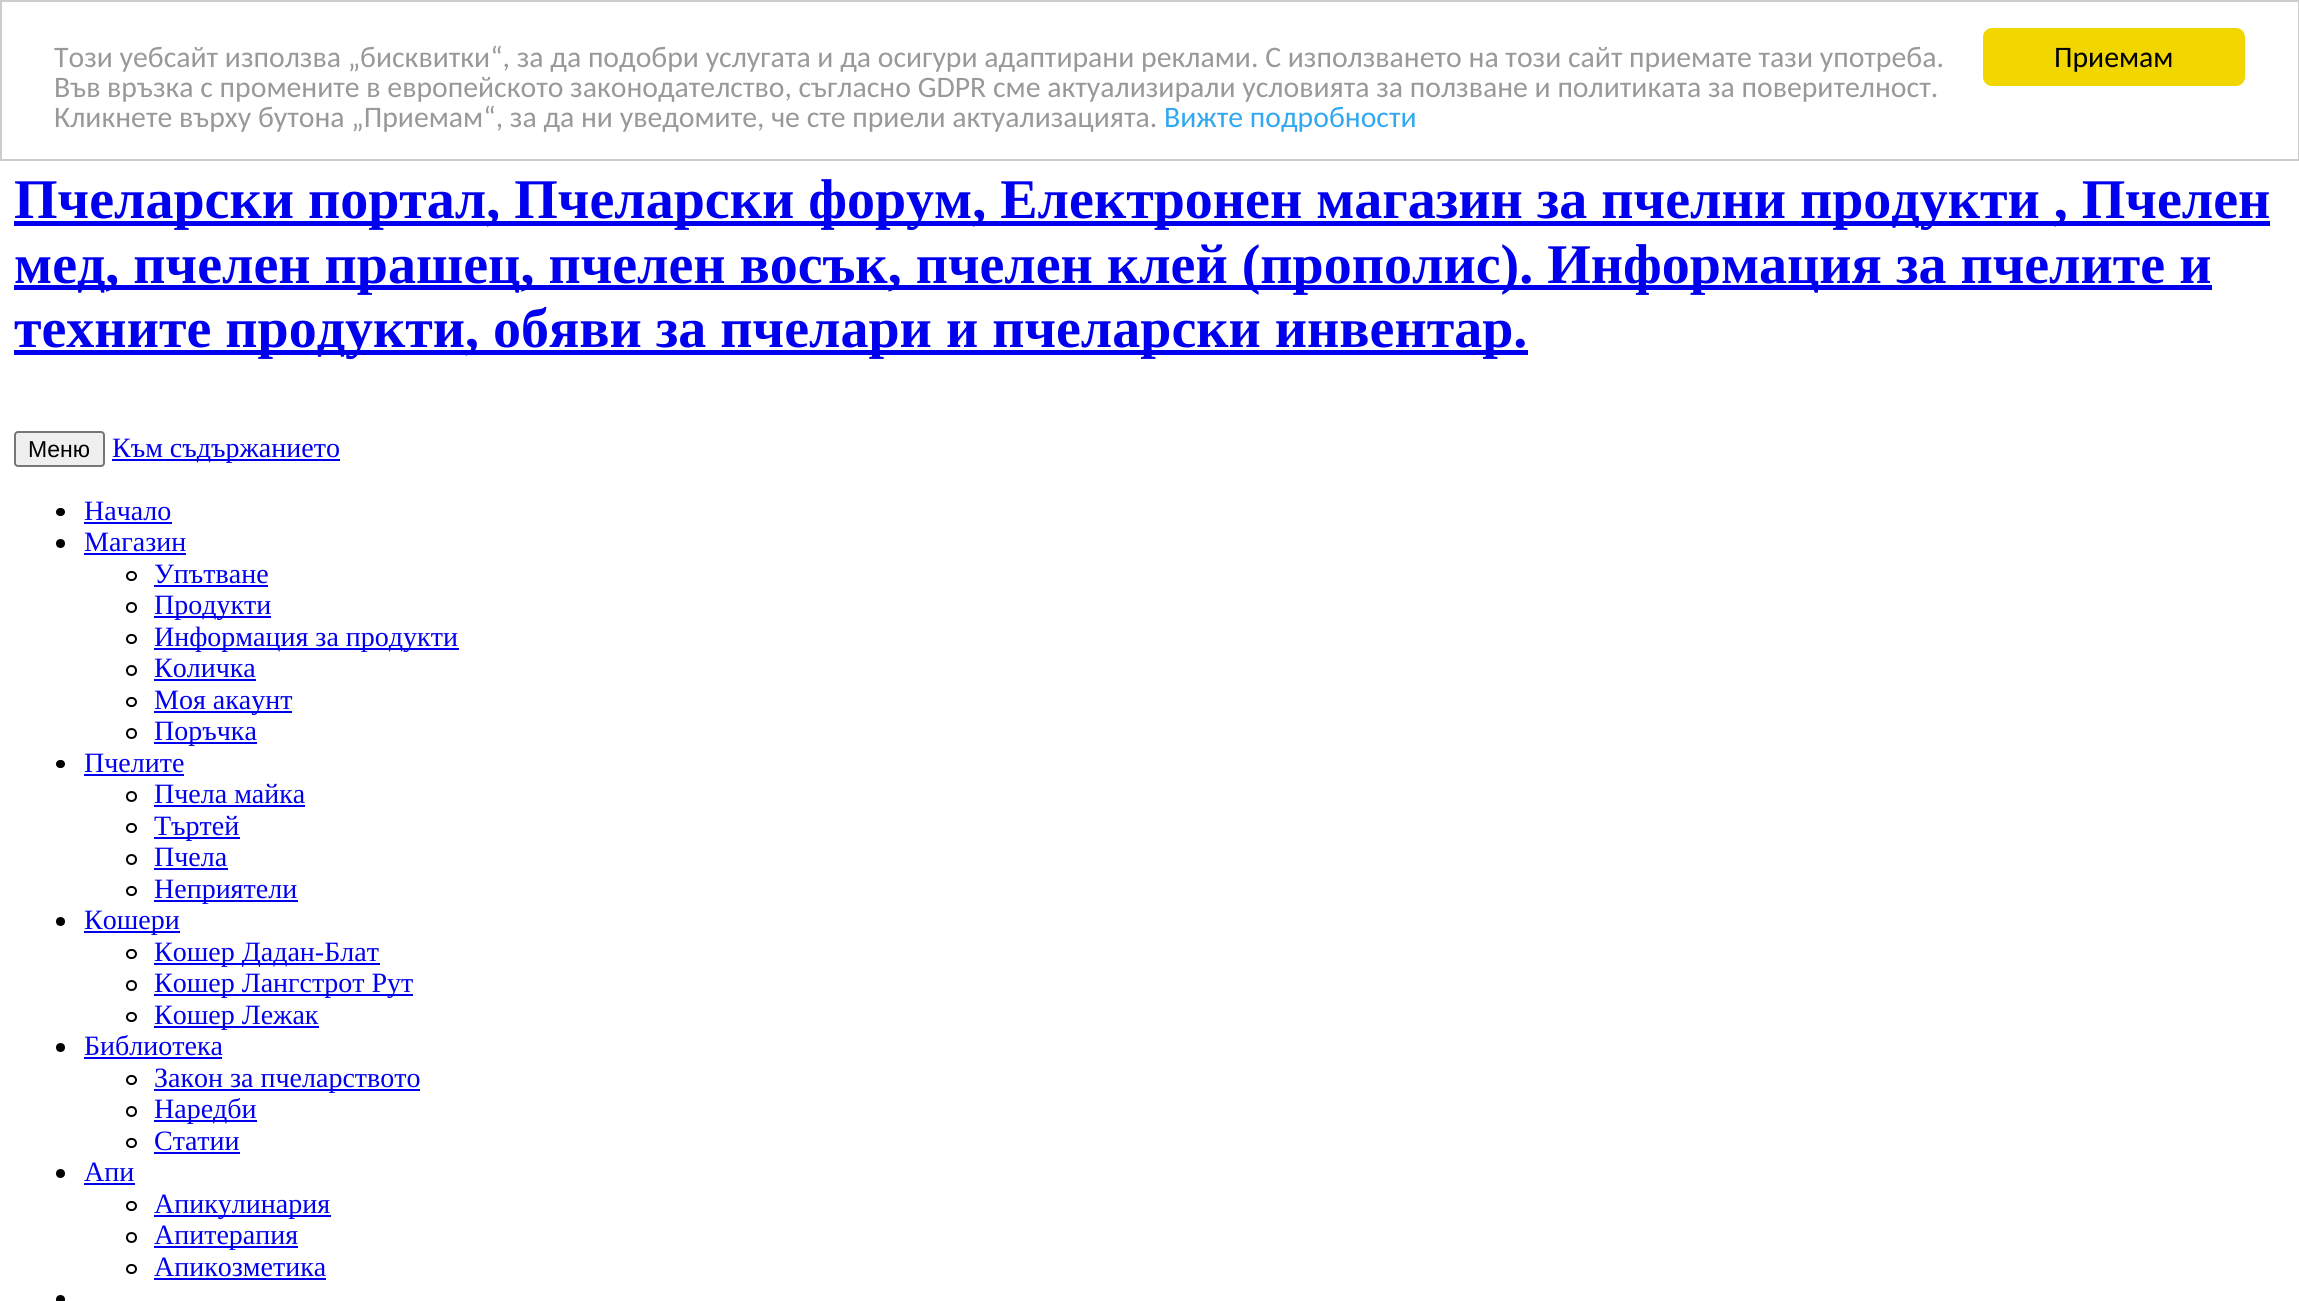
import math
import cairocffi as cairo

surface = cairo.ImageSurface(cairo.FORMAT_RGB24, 2299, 1301)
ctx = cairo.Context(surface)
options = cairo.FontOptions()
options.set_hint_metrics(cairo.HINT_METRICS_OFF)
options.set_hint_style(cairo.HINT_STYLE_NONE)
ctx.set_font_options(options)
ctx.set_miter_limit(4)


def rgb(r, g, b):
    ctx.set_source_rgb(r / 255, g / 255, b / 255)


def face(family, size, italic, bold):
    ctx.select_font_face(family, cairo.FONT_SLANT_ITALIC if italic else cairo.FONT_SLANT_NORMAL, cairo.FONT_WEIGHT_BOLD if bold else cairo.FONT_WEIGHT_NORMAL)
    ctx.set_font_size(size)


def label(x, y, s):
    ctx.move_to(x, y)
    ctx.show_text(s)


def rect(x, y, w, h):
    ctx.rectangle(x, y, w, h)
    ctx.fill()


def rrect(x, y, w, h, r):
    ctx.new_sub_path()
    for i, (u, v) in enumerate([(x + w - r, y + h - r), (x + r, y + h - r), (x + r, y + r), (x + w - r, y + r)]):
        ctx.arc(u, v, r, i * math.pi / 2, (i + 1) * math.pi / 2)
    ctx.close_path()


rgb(255, 255, 255)
ctx.paint()
ctx.rectangle(1, 1, 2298, 159)
rgb(204, 204, 204)
ctx.stroke()
face('Carlito', 29.75, 0, 0)
rgb(153, 153, 153)
label(54, 67, 'Този уебсайт използва „бисквитки“, за да подобри услугата и да осигури адаптирани реклами. С използването на този сайт приемате тази употреба.')
label(54, 97, 'Във връзка с промените в европейското законодателство, съгласно GDPR сме актуализирали условията за ползване и политиката за поверителност.')
label(54, 127, 'Кликнете върху бутона „Приемам“, за да ни уведомите, че сте приели актуализацията.')
rgb(49, 168, 240)
label(1164, 127, 'Вижте подробности')
rgb(241, 214, 0)
rrect(1983, 28, 262, 58, 9)
ctx.fill()
rgb(0, 0, 0)
label(2054, 67, 'Приемам')
rgb(0, 0, 238)
rect(14, 221, 2256, 5)
face('Liberation Serif', 56, 0, 1)
label(14, 218, 'Пчеларски портал, Пчеларски форум, Електронен магазин за пчелни продукти , Пчелен')
rect(14, 285, 2198, 5)
label(14, 283, 'мед, пчелен прашец, пчелен восък, пчелен клей (прополис). Информация за пчелите и')
rect(14, 350, 1514, 5)
label(14, 347, 'техните продукти, обяви за пчелари и пчеларски инвентар.')
rgb(239, 239, 239)
rrect(15, 432, 89, 34, 3)
ctx.fill_preserve()
rgb(118, 118, 118)
ctx.stroke()
face('Liberation Sans', 23, 0, 0)
rgb(0, 0, 0)
label(28, 457, 'Меню')
rgb(0, 0, 238)
rect(112, 459, 228, 2)
face('Liberation Serif', 28, 0, 0)
label(112, 457, 'Към съдържанието')
rgb(0, 0, 0)
rrect(56, 508, 9, 8, 4)
ctx.fill()
rgb(0, 0, 238)
label(84, 520, 'Начало')
rect(84, 522, 88, 2)
rgb(0, 0, 0)
ctx.new_path()
ctx.arc(60.5, 543.5, 4.5, 0, 2 * math.pi)
ctx.fill()
rgb(0, 0, 238)
label(84, 551, 'Магазин')
rect(84, 553, 102, 2)
rrect(127, 572, 9, 8, 4)
rgb(0, 0, 0)
ctx.stroke()
rgb(0, 0, 238)
label(154, 583, 'Упътване')
rect(154, 585, 114, 2)
ctx.new_path()
ctx.arc(131.5, 607.5, 4.5, 0, 2 * math.pi)
rgb(0, 0, 0)
ctx.stroke()
rgb(0, 0, 238)
rect(154, 616, 117, 2)
label(154, 614, 'Продукти')
rrect(127, 635, 9, 8, 4)
rgb(0, 0, 0)
ctx.stroke()
rgb(0, 0, 238)
rect(154, 648, 305, 2)
label(154, 646, 'Информация за продукти')
ctx.new_path()
ctx.arc(131.5, 670.5, 4.5, 0, 2 * math.pi)
rgb(0, 0, 0)
ctx.stroke()
rgb(0, 0, 238)
label(154, 677, 'Количка')
rect(154, 679, 102, 2)
rrect(127, 698, 9, 8, 4)
rgb(0, 0, 0)
ctx.stroke()
rgb(0, 0, 238)
rect(154, 711, 138, 2)
label(154, 709, 'Моя акаунт')
ctx.new_path()
ctx.arc(131.5, 733.5, 4.5, 0, 2 * math.pi)
rgb(0, 0, 0)
ctx.stroke()
rgb(0, 0, 238)
rect(154, 742, 103, 2)
label(154, 740, 'Поръчка')
rgb(0, 0, 0)
rrect(56, 760, 9, 8, 4)
ctx.fill()
rgb(0, 0, 238)
label(84, 772, 'Пчелите')
rect(84, 774, 100, 2)
ctx.new_path()
ctx.arc(131.5, 796.5, 4.5, 0, 2 * math.pi)
rgb(0, 0, 0)
ctx.stroke()
rgb(0, 0, 238)
label(154, 803, 'Пчела майка')
rect(154, 805, 151, 2)
rrect(127, 824, 9, 8, 4)
rgb(0, 0, 0)
ctx.stroke()
rgb(0, 0, 238)
rect(154, 837, 86, 2)
label(154, 835, 'Търтей')
ctx.new_path()
ctx.arc(131.5, 859.5, 4.5, 0, 2 * math.pi)
rgb(0, 0, 0)
ctx.stroke()
rgb(0, 0, 238)
label(154, 866, 'Пчела')
rect(154, 868, 74, 2)
rrect(127, 887, 9, 8, 4)
rgb(0, 0, 0)
ctx.stroke()
rgb(0, 0, 238)
rect(154, 900, 144, 2)
label(154, 898, 'Неприятели')
rgb(0, 0, 0)
ctx.new_path()
ctx.arc(60.5, 921.5, 4.5, 0, 2 * math.pi)
ctx.fill()
rgb(0, 0, 238)
rect(84, 931, 96, 2)
label(84, 929, 'Кошери')
rrect(127, 950, 9, 8, 4)
rgb(0, 0, 0)
ctx.stroke()
rgb(0, 0, 238)
rect(154, 963, 226, 2)
label(154, 961, 'Кошер Дадан-Блат')
ctx.new_path()
ctx.arc(131.5, 985.5, 4.5, 0, 2 * math.pi)
rgb(0, 0, 0)
ctx.stroke()
rgb(0, 0, 238)
rect(154, 994, 259, 2)
label(154, 992, 'Кошер Лангстрот Рут')
rrect(127, 1013, 9, 8, 4)
rgb(0, 0, 0)
ctx.stroke()
rgb(0, 0, 238)
rect(154, 1026, 165, 2)
label(154, 1024, 'Кошер Лежак')
rgb(0, 0, 0)
ctx.new_path()
ctx.arc(60.5, 1047.5, 4.5, 0, 2 * math.pi)
ctx.fill()
rgb(0, 0, 238)
label(84, 1055, 'Библиотека')
rect(84, 1057, 138, 2)
rrect(127, 1076, 9, 8, 4)
rgb(0, 0, 0)
ctx.stroke()
rgb(0, 0, 238)
rect(154, 1089, 266, 2)
label(154, 1087, 'Закон за пчеларството')
ctx.new_path()
ctx.arc(131.5, 1111.5, 4.5, 0, 2 * math.pi)
rgb(0, 0, 0)
ctx.stroke()
rgb(0, 0, 238)
rect(154, 1120, 103, 2)
label(154, 1118, 'Наредби')
rrect(127, 1139, 9, 8, 4)
rgb(0, 0, 0)
ctx.stroke()
rgb(0, 0, 238)
label(154, 1150, 'Статии')
rect(154, 1152, 86, 2)
rgb(0, 0, 0)
ctx.new_path()
ctx.arc(60.5, 1173.5, 4.5, 0, 2 * math.pi)
ctx.fill()
rgb(0, 0, 238)
label(84, 1181, 'Апи')
rect(84, 1183, 51, 2)
rrect(127, 1202, 9, 8, 4)
rgb(0, 0, 0)
ctx.stroke()
rgb(0, 0, 238)
rect(154, 1215, 177, 2)
label(154, 1213, 'Апикулинария')
ctx.new_path()
ctx.arc(131.5, 1237.5, 4.5, 0, 2 * math.pi)
rgb(0, 0, 0)
ctx.stroke()
rgb(0, 0, 238)
rect(154, 1246, 144, 2)
label(154, 1244, 'Апитерапия')
rrect(127, 1265, 9, 8, 4)
rgb(0, 0, 0)
ctx.stroke()
rgb(0, 0, 238)
label(154, 1276, 'Апикозметика')
rect(154, 1278, 172, 2)
rgb(0, 0, 0)
ctx.new_path()
ctx.arc(60.5, 1299.5, 4.5, 0, 2 * math.pi)
ctx.fill()
surface.write_to_png('render.png')
